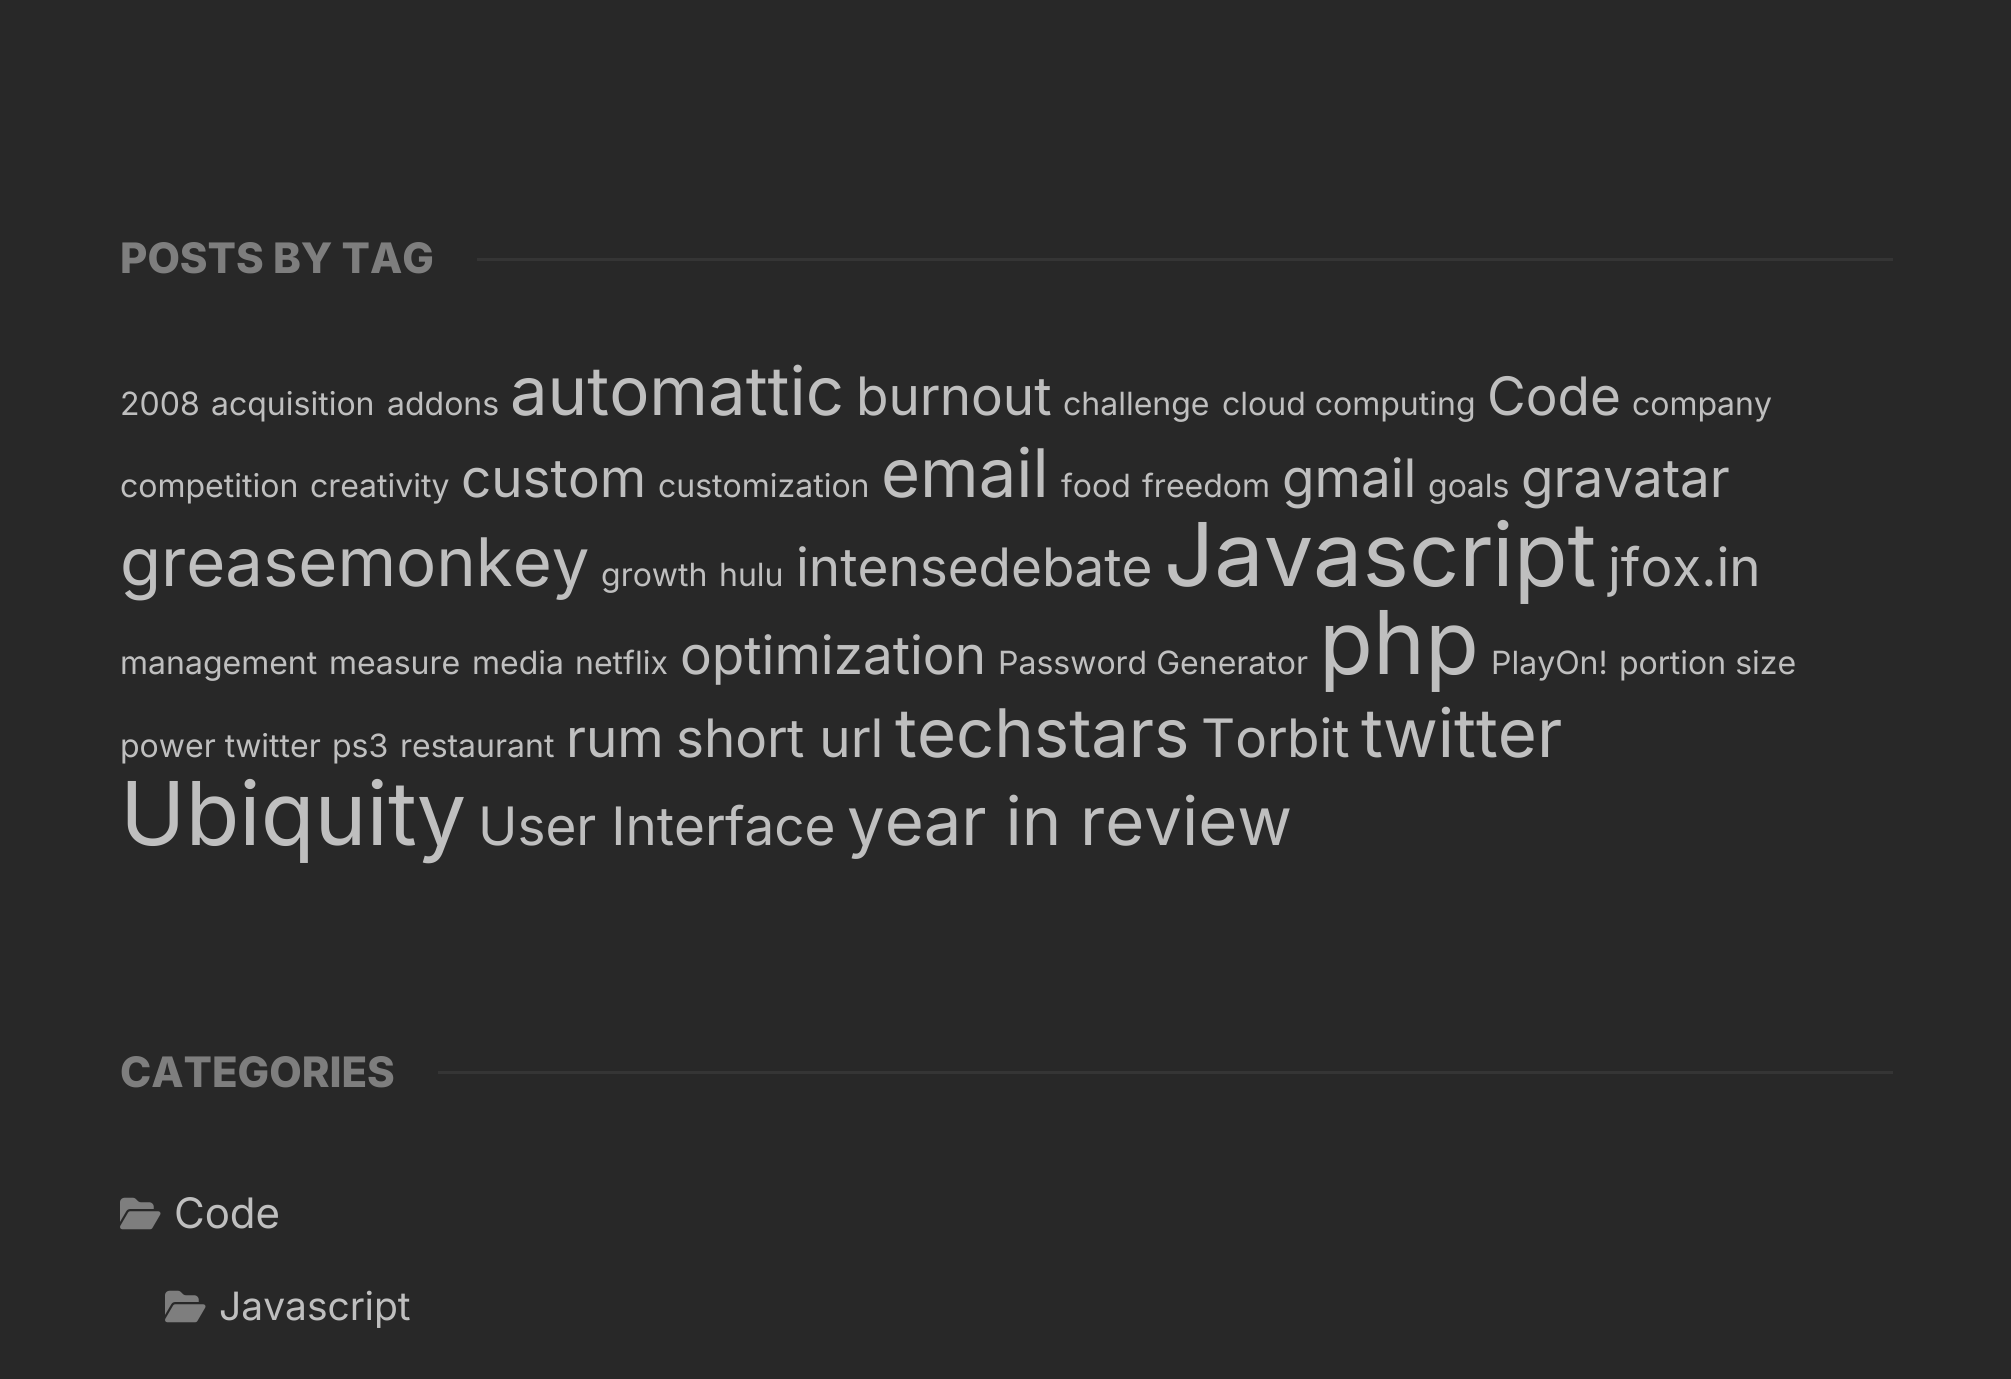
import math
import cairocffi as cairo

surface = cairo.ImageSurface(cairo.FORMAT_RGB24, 2011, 1379)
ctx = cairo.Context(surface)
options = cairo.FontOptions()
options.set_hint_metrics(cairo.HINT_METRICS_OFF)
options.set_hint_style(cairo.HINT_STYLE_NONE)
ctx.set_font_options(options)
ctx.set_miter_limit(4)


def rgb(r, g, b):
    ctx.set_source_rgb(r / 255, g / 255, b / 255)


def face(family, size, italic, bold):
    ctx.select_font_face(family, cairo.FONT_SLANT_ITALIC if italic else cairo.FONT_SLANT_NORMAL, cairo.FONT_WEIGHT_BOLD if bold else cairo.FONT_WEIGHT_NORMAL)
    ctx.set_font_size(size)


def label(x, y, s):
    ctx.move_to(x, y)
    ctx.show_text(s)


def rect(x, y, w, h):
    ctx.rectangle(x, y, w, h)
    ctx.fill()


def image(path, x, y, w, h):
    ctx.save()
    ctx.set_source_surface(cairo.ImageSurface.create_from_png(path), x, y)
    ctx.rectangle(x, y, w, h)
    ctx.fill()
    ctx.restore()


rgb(40, 40, 40)
ctx.paint()
face('Inter ExtraBold', 42, 0, 0)
rgb(126, 126, 126)
label(120, 273, 'POSTS BY TAG')
rgb(53, 53, 53)
rect(477, 258, 1416, 3)
face('Inter', 32, 0, 0)
rgb(191, 191, 191)
label(120, 415, '2008')
label(211, 415, 'acquisition')
label(387, 415, 'addons')
face('Inter', 67, 0, 0)
label(510, 415, 'automattic')
face('Inter', 53, 0, 0)
label(856, 415, 'burnout')
face('Inter', 32, 0, 0)
label(1063, 415, 'challenge')
label(1222, 415, 'cloud computing')
face('Inter', 53, 0, 0)
label(1487, 415, 'Code')
face('Inter', 32, 0, 0)
label(1632, 415, 'company')
label(120, 497, 'competition')
label(310, 497, 'creativity')
face('Inter', 53, 0, 0)
label(461, 497, 'custom')
face('Inter', 32, 0, 0)
label(658, 497, 'customization')
face('Inter', 67, 0, 0)
label(881, 497, 'email')
face('Inter', 32, 0, 0)
label(1061, 497, 'food')
label(1142, 497, 'freedom')
face('Inter', 53, 0, 0)
label(1282, 497, 'gmail')
face('Inter', 32, 0, 0)
label(1428, 497, 'goals')
face('Inter', 53, 0, 0)
label(1521, 497, 'gravatar')
face('Inter', 67, 0, 0)
label(120, 586, 'greasemonkey')
face('Inter', 32, 0, 0)
label(601, 586, 'growth')
label(719, 586, 'hulu')
face('Inter', 53, 0, 0)
label(796, 586, 'intensedebate')
face('Inter', 88, 0, 0)
label(1164, 586, 'Javascript')
face('Inter', 53, 0, 0)
label(1608, 586, 'jfox.in')
face('Inter', 32, 0, 0)
label(120, 674, 'management')
label(329, 674, 'measure')
label(472, 674, 'media')
label(575, 674, 'netflix')
face('Inter', 53, 0, 0)
label(680, 674, 'optimization')
face('Inter', 32, 0, 0)
label(998, 674, 'Password Generator')
face('Inter', 88, 0, 0)
label(1319, 674, 'php')
face('Inter', 32, 0, 0)
label(1491, 674, 'PlayOn!')
label(1619, 674, 'portion size')
label(120, 757, 'power twitter')
label(332, 757, 'ps3')
label(400, 757, 'restaurant')
face('Inter', 53, 0, 0)
label(566, 757, 'rum')
label(676, 757, 'short url')
face('Inter', 67, 0, 0)
label(895, 757, 'techstars')
face('Inter', 53, 0, 0)
label(1201, 757, 'Torbit')
face('Inter', 67, 0, 0)
label(1361, 757, 'twitter')
face('Inter', 88, 0, 0)
label(120, 845, 'Ubiquity')
face('Inter', 53, 0, 0)
label(478, 845, 'User Interface')
face('Inter', 67, 0, 0)
label(847, 845, 'year in review')
face('Inter ExtraBold', 42, 0, 0)
rgb(126, 126, 126)
label(120, 1087, 'CATEGORIES')
rgb(53, 53, 53)
rect(438, 1071, 1455, 3)
image('image0.png', 120, 1197, 41, 33)
face('Inter', 42, 0, 0)
rgb(191, 191, 191)
label(174, 1228, 'Code')
image('image0.png', 165, 1290, 41, 33)
face('Inter', 39, 0, 0)
label(219, 1320, 'Javascript')
surface.write_to_png('render.png')
